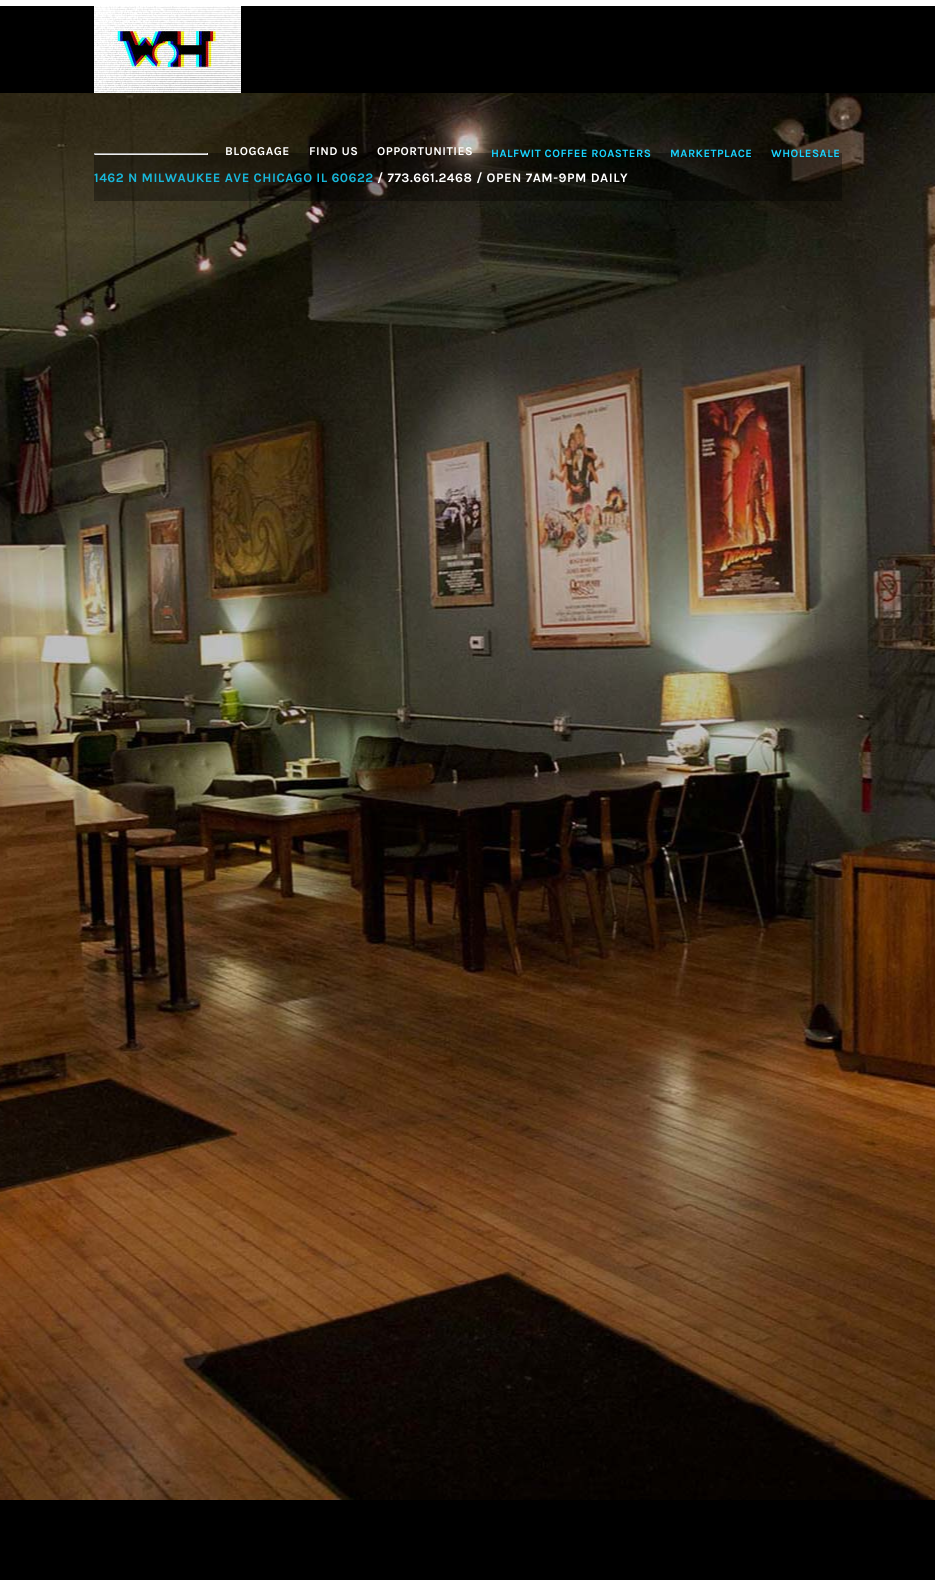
import math
import cairocffi as cairo

surface = cairo.ImageSurface(cairo.FORMAT_RGB24, 935, 1580)
ctx = cairo.Context(surface)
options = cairo.FontOptions()
options.set_hint_metrics(cairo.HINT_METRICS_OFF)
options.set_hint_style(cairo.HINT_STYLE_NONE)
ctx.set_font_options(options)
ctx.set_miter_limit(4)


def rgb(r, g, b):
    ctx.set_source_rgb(r / 255, g / 255, b / 255)


def face(family, size, italic, bold):
    ctx.select_font_face(family, cairo.FONT_SLANT_ITALIC if italic else cairo.FONT_SLANT_NORMAL, cairo.FONT_WEIGHT_BOLD if bold else cairo.FONT_WEIGHT_NORMAL)
    ctx.set_font_size(size)


def tracked(x, y, s, letter, word):
    ctx.move_to(x, y)
    for ch in s:
        ctx.show_text(ch)
        ctx.rel_move_to(letter + word * (ch == ' '), 0)


def rect(x, y, w, h):
    ctx.rectangle(x, y, w, h)
    ctx.fill()


def image(path, x, y, w, h):
    ctx.save()
    ctx.set_source_surface(cairo.ImageSurface.create_from_png(path), x, y)
    ctx.rectangle(x, y, w, h)
    ctx.fill()
    ctx.restore()


rgb(0, 0, 0)
ctx.paint()
image('image0.png', 0, 93, 935, 1407)
rgb(255, 255, 255)
rect(0, 0, 935, 6)
image('image1.png', 94, 6, 147, 87)
ctx.set_source_rgba(0, 0, 0, 0.35)
rect(94, 153, 748, 48)
face('Karla', 12, 0, 1)
rgb(255, 255, 255)
tracked(225, 155, 'BLOGGAGE', 0.5, 0)
tracked(309, 155, 'FIND US', 0.5, 0)
tracked(377, 155, 'OPPORTUNITIES', 0.5, 0)
face('Karla', 11.25, 0, 1)
rgb(24, 211, 255)
tracked(491, 157, 'HALFWIT COFFEE ROASTERS', 0.5, 0)
tracked(670, 157, 'MARKETPLACE', 0.5, 0)
tracked(771, 157, 'WHOLESALE', 0.5, 0)
rgb(159, 159, 159)
rect(94, 153, 114, 1)
rgb(238, 238, 238)
rect(207, 153, 1, 2)
rect(94, 154, 114, 1)
rgb(159, 159, 159)
rect(94, 153, 1, 2)
face('Karla', 13, 0, 1)
rgb(23, 183, 218)
tracked(94, 182, '1462 N MILWAUKEE AVE CHICAGO IL 60622', 0.5, 0)
rgb(255, 255, 255)
tracked(377, 182, '/ 773.661.2468 / OPEN 7AM-9PM DAILY', 0.5, 0)
surface.write_to_png('render.png')
